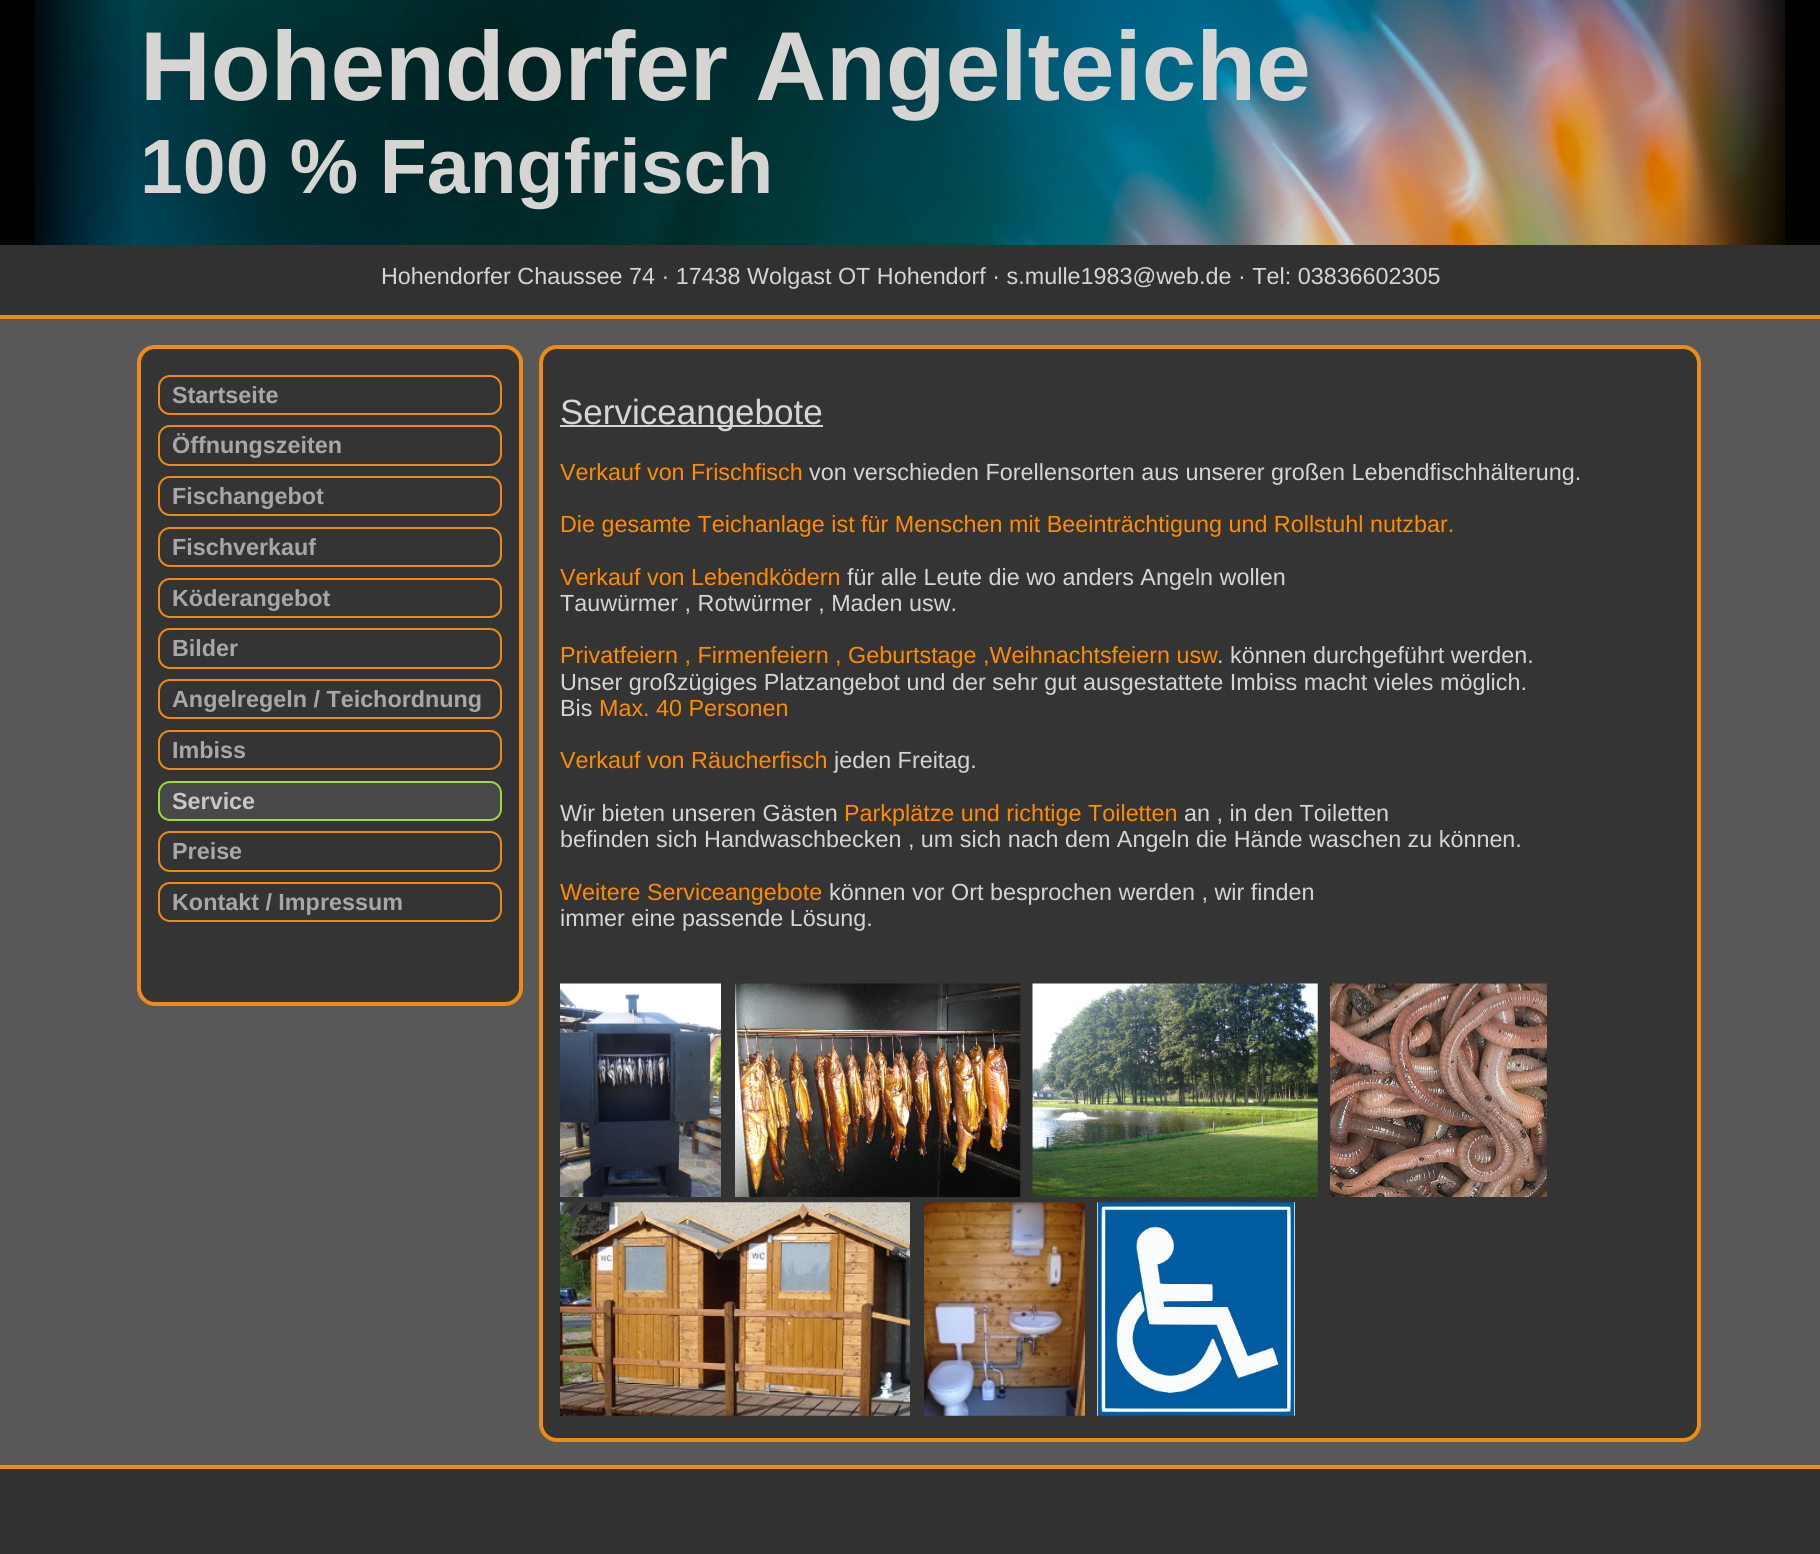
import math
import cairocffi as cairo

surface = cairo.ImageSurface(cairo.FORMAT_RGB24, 1820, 1554)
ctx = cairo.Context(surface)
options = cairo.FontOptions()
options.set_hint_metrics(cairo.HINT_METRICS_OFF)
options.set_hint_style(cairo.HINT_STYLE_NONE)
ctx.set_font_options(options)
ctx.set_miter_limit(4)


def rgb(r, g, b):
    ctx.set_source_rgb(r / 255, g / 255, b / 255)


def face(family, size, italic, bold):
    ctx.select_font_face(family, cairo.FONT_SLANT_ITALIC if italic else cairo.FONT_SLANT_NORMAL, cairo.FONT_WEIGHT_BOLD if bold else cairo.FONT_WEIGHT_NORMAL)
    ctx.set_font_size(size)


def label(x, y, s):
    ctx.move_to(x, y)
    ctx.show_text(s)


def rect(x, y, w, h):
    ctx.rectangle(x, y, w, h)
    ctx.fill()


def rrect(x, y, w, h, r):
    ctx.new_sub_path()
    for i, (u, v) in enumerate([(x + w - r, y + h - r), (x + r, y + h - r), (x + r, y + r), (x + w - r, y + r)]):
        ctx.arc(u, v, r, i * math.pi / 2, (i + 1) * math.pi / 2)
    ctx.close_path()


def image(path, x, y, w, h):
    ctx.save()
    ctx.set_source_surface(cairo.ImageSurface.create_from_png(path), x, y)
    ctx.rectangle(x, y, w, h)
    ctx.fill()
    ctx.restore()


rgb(88, 88, 88)
ctx.paint()
rgb(0, 0, 0)
rect(0, 0, 1820, 245)
image('image0.png', 35, 0, 1750, 245)
image('image1.png', 35, 0, 98, 245)
image('image2.png', 1686, 0, 99, 245)
face('Liberation Sans', 98, 0, 1)
rgb(215, 213, 211)
label(140, 100, 'Hohendorfer Angelteiche')
face('Liberation Sans', 77, 0, 1)
label(140, 193, '100 % Fangfrisch')
rgb(49, 49, 49)
rect(0, 245, 1820, 70)
rgb(237, 139, 22)
rect(0, 315, 1820, 4)
face('Liberation Sans', 23.35, 0, 0)
rgb(215, 213, 211)
label(381, 284, 'Hohendorfer Chaussee 74 · 17438 Wolgast OT Hohendorf · s.mulle1983@web.de · Tel: 03836602305')
rgb(53, 52, 52)
rrect(139, 347, 382, 657, 16)
ctx.fill_preserve()
rgb(237, 139, 22)
ctx.set_line_width(4)
ctx.stroke()
rrect(159, 376, 342, 38, 11)
ctx.set_line_width(2)
ctx.stroke()
face('Liberation Sans', 23.35, 0, 1)
rgb(167, 167, 167)
label(172, 403, 'Startseite')
rrect(159, 426, 342, 39, 11)
rgb(237, 139, 22)
ctx.stroke()
rgb(167, 167, 167)
label(172, 453, 'Öffnungszeiten')
rrect(159, 477, 342, 38, 11)
rgb(237, 139, 22)
ctx.stroke()
rgb(167, 167, 167)
label(172, 504, 'Fischangebot')
rrect(159, 528, 342, 38, 11)
rgb(237, 139, 22)
ctx.stroke()
rgb(167, 167, 167)
label(172, 555, 'Fischverkauf')
rrect(159, 579, 342, 38, 11)
rgb(237, 139, 22)
ctx.stroke()
rgb(167, 167, 167)
label(172, 606, 'Köderangebot')
rrect(159, 629, 342, 39, 11)
rgb(237, 139, 22)
ctx.stroke()
rgb(167, 167, 167)
label(172, 656, 'Bilder')
rrect(159, 680, 342, 38, 11)
rgb(237, 139, 22)
ctx.stroke()
rgb(167, 167, 167)
label(172, 707, 'Angelregeln / Teichordnung')
rrect(159, 731, 342, 38, 11)
rgb(237, 139, 22)
ctx.stroke()
rgb(167, 167, 167)
label(172, 758, 'Imbiss')
rgb(72, 72, 72)
rrect(159, 782, 342, 38, 11)
ctx.fill_preserve()
rgb(155, 219, 51)
ctx.stroke()
rgb(199, 199, 199)
label(172, 809, 'Service')
rrect(159, 832, 342, 39, 11)
rgb(237, 139, 22)
ctx.stroke()
rgb(167, 167, 167)
label(172, 859, 'Preise')
rrect(159, 883, 342, 38, 11)
rgb(237, 139, 22)
ctx.stroke()
rgb(167, 167, 167)
label(172, 910, 'Kontakt / Impressum')
rgb(53, 52, 52)
rrect(541, 347, 1158, 1093, 16)
ctx.fill_preserve()
rgb(237, 139, 22)
ctx.set_line_width(4)
ctx.stroke()
rgb(215, 213, 211)
rect(560, 425, 263, 2)
face('Liberation Sans', 35, 0, 0)
label(560, 424, 'Serviceangebote')
face('Liberation Sans', 23.35, 0, 0)
rgb(255, 140, 0)
label(560, 480, 'Verkauf von Frischfisch')
rgb(215, 213, 211)
label(809, 480, 'von verschieden Forellensorten aus unserer großen Lebendfischhälterung.')
rgb(255, 140, 0)
label(560, 532, 'Die gesamte Teichanlage ist für Menschen mit Beeinträchtigung und Rollstuhl nutzbar.')
label(560, 585, 'Verkauf von Lebendködern')
rgb(215, 213, 211)
label(847, 585, 'für alle Leute die wo anders Angeln wollen')
label(560, 611, 'Tauwürmer , Rotwürmer , Maden usw.')
rgb(255, 140, 0)
label(560, 663, 'Privatfeiern , Firmenfeiern , Geburtstage ,Weihnachtsfeiern usw')
rgb(215, 213, 211)
label(1217, 663, '. können durchgeführt werden.')
label(560, 690, 'Unser großzügiges Platzangebot und der sehr gut ausgestattete Imbiss macht vieles möglich.')
label(560, 716, 'Bis')
rgb(255, 140, 0)
label(599, 716, 'Max. 40 Personen')
label(560, 768, 'Verkauf von Räucherfisch')
rgb(215, 213, 211)
label(834, 768, 'jeden Freitag.')
label(560, 821, 'Wir bieten unseren Gästen')
rgb(255, 140, 0)
label(844, 821, 'Parkplätze und richtige Toiletten')
rgb(215, 213, 211)
label(1184, 821, 'an , in den Toiletten')
label(560, 847, 'befinden sich Handwaschbecken , um sich nach dem Angeln die Hände waschen zu können.')
rgb(255, 140, 0)
label(560, 900, 'Weitere Serviceangebote')
rgb(215, 213, 211)
label(829, 900, 'können vor Ort besprochen werden , wir finden')
label(560, 926, 'immer eine passende Lösung.')
image('image3.png', 560, 983, 161, 214)
image('image4.png', 735, 983, 286, 214)
image('image5.png', 1032, 983, 286, 214)
image('image6.png', 1330, 983, 217, 214)
image('image7.png', 560, 1202, 350, 214)
image('image8.png', 924, 1202, 161, 214)
image('image9.png', 1097, 1202, 198, 214)
rgb(49, 49, 49)
rect(0, 1469, 1820, 85)
rgb(237, 139, 22)
rect(0, 1465, 1820, 4)
surface.write_to_png('render.png')
